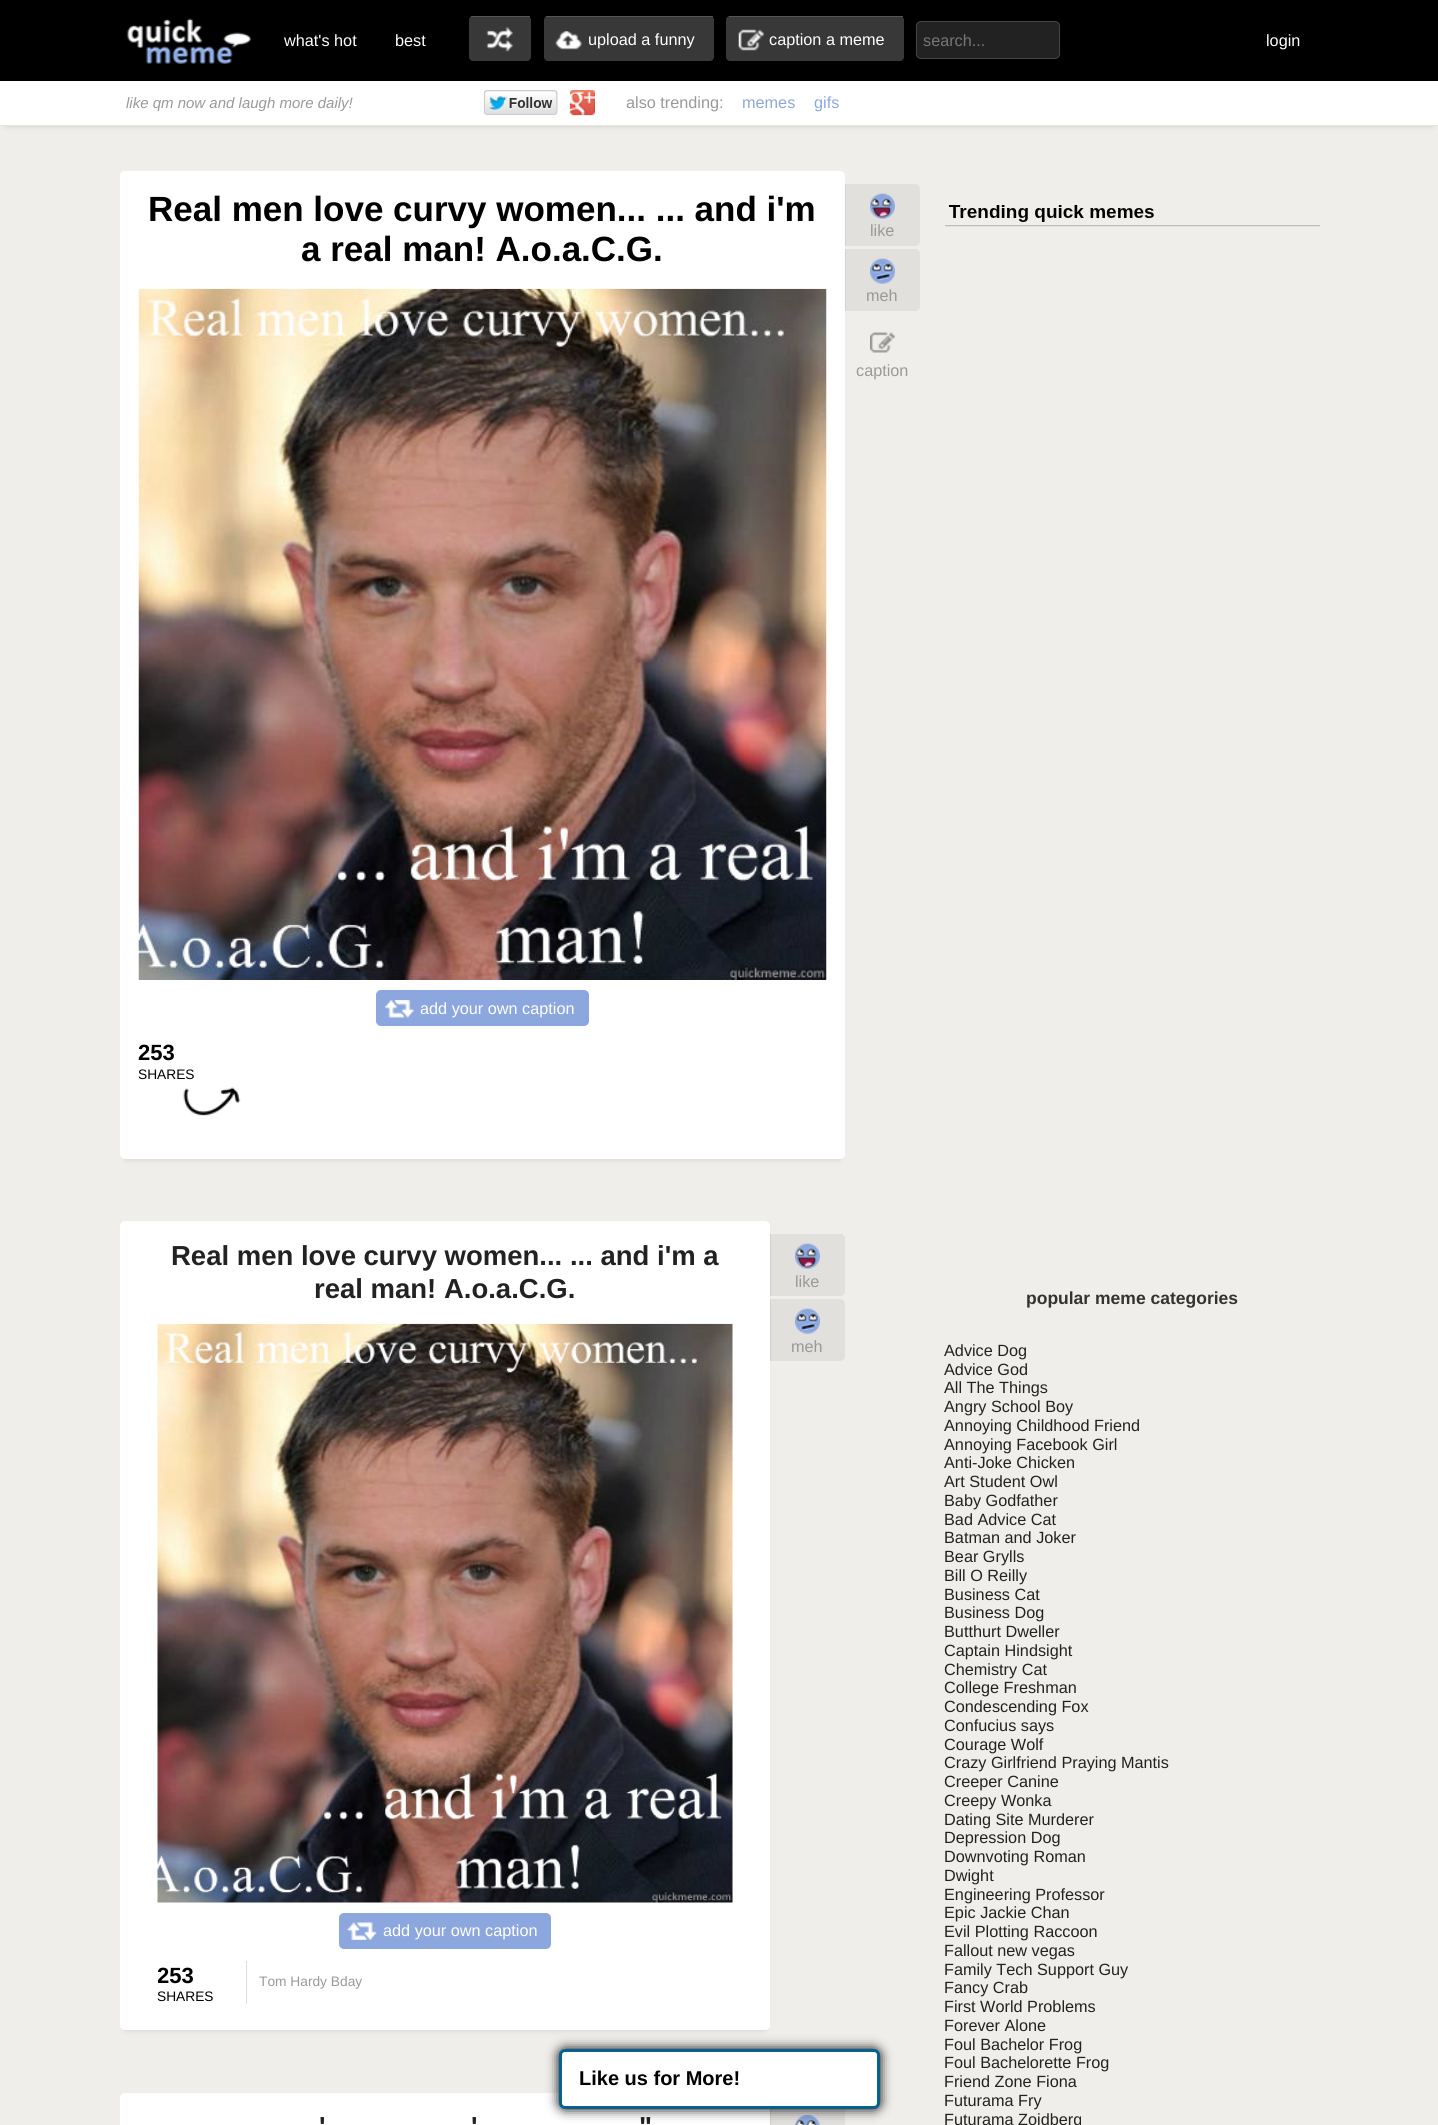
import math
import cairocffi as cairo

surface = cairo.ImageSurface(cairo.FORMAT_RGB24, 1438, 2125)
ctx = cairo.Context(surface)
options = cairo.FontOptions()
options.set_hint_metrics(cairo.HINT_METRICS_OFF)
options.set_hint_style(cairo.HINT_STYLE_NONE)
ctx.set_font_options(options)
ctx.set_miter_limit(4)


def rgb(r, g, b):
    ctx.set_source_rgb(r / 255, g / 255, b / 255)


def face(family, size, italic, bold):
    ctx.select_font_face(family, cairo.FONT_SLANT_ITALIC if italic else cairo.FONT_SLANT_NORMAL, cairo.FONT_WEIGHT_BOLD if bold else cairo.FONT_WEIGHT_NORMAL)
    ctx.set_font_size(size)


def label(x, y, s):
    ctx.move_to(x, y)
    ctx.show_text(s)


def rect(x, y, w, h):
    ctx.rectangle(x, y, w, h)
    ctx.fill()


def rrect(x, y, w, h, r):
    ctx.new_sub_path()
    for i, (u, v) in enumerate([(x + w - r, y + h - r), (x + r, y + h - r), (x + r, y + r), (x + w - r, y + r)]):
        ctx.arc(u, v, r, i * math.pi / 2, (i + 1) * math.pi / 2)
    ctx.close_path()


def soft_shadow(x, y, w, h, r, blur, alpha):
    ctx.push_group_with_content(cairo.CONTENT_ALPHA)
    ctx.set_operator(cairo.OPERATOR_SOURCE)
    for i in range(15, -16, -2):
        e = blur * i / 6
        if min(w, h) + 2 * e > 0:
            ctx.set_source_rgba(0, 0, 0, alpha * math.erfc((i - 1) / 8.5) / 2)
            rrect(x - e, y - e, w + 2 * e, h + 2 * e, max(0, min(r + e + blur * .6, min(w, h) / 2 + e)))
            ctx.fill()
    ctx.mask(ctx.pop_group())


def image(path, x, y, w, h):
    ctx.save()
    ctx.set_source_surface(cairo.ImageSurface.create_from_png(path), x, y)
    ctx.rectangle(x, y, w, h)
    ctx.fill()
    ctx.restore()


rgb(239, 238, 234)
ctx.paint()
rgb(0, 0, 0)
rect(0, 0, 1438, 81)
image('image0.png', 126, 18, 126, 46)
face('Liberation Sans', 16.25, 0, 0)
rgb(255, 255, 255)
label(284, 46, 'what\'s hot')
label(395, 46, 'best')
rgb(56, 56, 56)
rrect(469, 16, 62, 45, 4)
ctx.fill()
image('image1.png', 486, 27, 27, 25)
rgb(85, 85, 85)
rect(471, 16, 59, 1)
rgb(56, 56, 56)
rrect(544, 16, 170, 45, 4)
ctx.fill()
image('image2.png', 555, 31, 27, 19)
rgb(85, 85, 85)
rect(546, 16, 167, 1)
rgb(255, 255, 255)
label(588, 45, 'upload a funny')
rgb(56, 56, 56)
rrect(726, 16, 178, 45, 4)
ctx.fill()
image('image3.png', 738, 29, 26, 22)
rgb(85, 85, 85)
rect(729, 16, 174, 1)
rgb(255, 255, 255)
label(769, 45, 'caption a meme')
rgb(34, 34, 34)
rrect(916.5, 21.5, 143, 37, 4.5)
ctx.fill_preserve()
rgb(68, 68, 68)
ctx.set_line_width(1)
ctx.stroke()
rgb(117, 117, 117)
label(923, 46, 'search...')
rgb(255, 255, 255)
label(1266, 46, 'login')
rgb(204, 204, 204)
soft_shadow(6, 94, 1427, 32, 0, 3, 1)
rgb(255, 255, 255)
rect(0, 81, 1438, 44)
rgb(231, 228, 218)
rect(0, 125, 1438, 1)
face('Liberation Sans', 15, 1, 0)
rgb(153, 153, 153)
label(126, 108, 'like qm now and laugh more daily!')
image('image4.png', 484, 90, 74, 25)
image('image5.png', 569, 90, 26, 26)
face('Liberation Sans', 16.25, 0, 0)
label(626, 108, 'also trending:')
rgb(140, 167, 221)
label(742, 108, 'memes')
label(814, 108, 'gifs')
rgb(204, 204, 204)
soft_shadow(126, 184, 713, 975, 0, 3, 1)
rgb(255, 255, 255)
rrect(120, 171, 725, 988, 5)
ctx.fill()
face('Liberation Sans', 35, 0, 1)
rgb(0, 0, 0)
label(148, 221, 'Real men love curvy women... ... and i\'m')
label(301, 261, 'a real man! A.o.a.C.G.')
rgb(225, 224, 221)
ctx.new_path()
ctx.move_to(845, 184)
ctx.line_to(915, 184)
ctx.curve_to(918, 184, 920, 186, 920, 189)
ctx.line_to(920, 241)
ctx.curve_to(920, 244, 918, 246, 915, 246)
ctx.line_to(845, 246)
ctx.close_path()
ctx.fill()
image('image6.png', 870, 193, 25, 26)
rgb(209, 208, 206)
rect(845, 184, 1, 62)
face('Liberation Sans', 16.25, 0, 0)
rgb(153, 153, 153)
label(870, 236, 'like')
rgb(225, 224, 221)
ctx.new_path()
ctx.move_to(845, 249)
ctx.line_to(915, 249)
ctx.curve_to(918, 249, 920, 251, 920, 254)
ctx.line_to(920, 306)
ctx.curve_to(920, 309, 918, 311, 915, 311)
ctx.line_to(845, 311)
ctx.close_path()
ctx.fill()
image('image7.png', 870, 258, 25, 26)
rgb(209, 208, 206)
rect(845, 249, 1, 62)
rgb(153, 153, 153)
label(866, 301, 'meh')
image('image8.png', 870, 332, 25, 21)
label(856, 376, 'caption')
image('image9.png', 138, 288, 689, 692)
rgb(140, 167, 221)
rrect(376, 990, 213, 36, 5)
ctx.fill()
image('image10.png', 385, 1000, 29, 18)
rgb(255, 255, 255)
label(420, 1014, 'add your own caption')
image('image11.png', 183, 1087, 58, 29)
face('Liberation Sans', 22, 0, 1)
rgb(0, 0, 0)
label(138, 1060, '253')
face('Liberation Sans', 13.75, 0, 0)
label(138, 1079, 'SHARES')
rgb(204, 204, 204)
soft_shadow(126, 1234, 638, 796, 0, 3, 1)
rgb(255, 255, 255)
rrect(120, 1221, 650, 809, 5)
ctx.fill()
face('Liberation Sans', 27.5, 0, 1)
rgb(34, 34, 34)
label(171, 1265, 'Real men love curvy women... ... and i\'m a')
label(314, 1298, 'real man! A.o.a.C.G.')
rgb(225, 224, 221)
ctx.new_path()
ctx.move_to(770, 1234)
ctx.line_to(840, 1234)
ctx.curve_to(843, 1234, 845, 1236, 845, 1239)
ctx.line_to(845, 1291)
ctx.curve_to(845, 1294, 843, 1296, 840, 1296)
ctx.line_to(770, 1296)
ctx.close_path()
ctx.fill()
image('image6.png', 795, 1243, 25, 26)
rgb(209, 208, 206)
rect(770, 1234, 1, 62)
face('Liberation Sans', 16.25, 0, 0)
rgb(153, 153, 153)
label(795, 1287, 'like')
rgb(225, 224, 221)
ctx.new_path()
ctx.move_to(770, 1299)
ctx.line_to(840, 1299)
ctx.curve_to(843, 1299, 845, 1301, 845, 1304)
ctx.line_to(845, 1356)
ctx.curve_to(845, 1359, 843, 1361, 840, 1361)
ctx.line_to(770, 1361)
ctx.close_path()
ctx.fill()
image('image7.png', 795, 1308, 25, 26)
rgb(209, 208, 206)
rect(770, 1299, 1, 62)
rgb(153, 153, 153)
label(791, 1352, 'meh')
image('image12.png', 157, 1323, 576, 580)
rgb(140, 167, 221)
rrect(339, 1913, 212, 36, 5)
ctx.fill()
image('image13.png', 347, 1922, 30, 18)
rgb(255, 255, 255)
label(383, 1936, 'add your own caption')
ctx.save()
ctx.rectangle(158, 1949, 62, 67)
ctx.clip()
face('Liberation Sans', 22, 0, 1)
rgb(0, 0, 0)
label(157, 1983, '253')
ctx.restore()
face('Liberation Sans', 13.75, 0, 0)
rgb(0, 0, 0)
label(157, 2001, 'SHARES')
rgb(221, 221, 221)
rect(246, 1961, 1, 43)
rgb(153, 153, 153)
label(259, 1986, 'Tom Hardy Bday')
rgb(255, 255, 255)
rrect(120, 2093, 650, 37, 5)
ctx.fill()
face('Liberation Sans', 27.5, 0, 1)
rgb(34, 34, 34)
label(319, 2136, '\'')
label(471, 2136, '\'')
label(639, 2136, '"')
rgb(225, 224, 221)
rect(771, 2109, 74, 16)
image('image14.png', 795, 2115, 25, 10)
rgb(209, 208, 206)
rect(770, 2105, 1, 20)
image('image15.png', 945, 205, 375, 22)
face('Liberation Sans', 17.5, 0, 1)
rgb(51, 51, 51)
label(1026, 1304, 'popular meme categories')
face('Liberation Sans', 16.25, 0, 0)
rgb(34, 34, 34)
label(944, 1356, 'Advice Dog')
label(944, 1375, 'Advice God')
label(944, 1393, 'All The Things')
label(944, 1412, 'Angry School Boy')
label(944, 1431, 'Annoying Childhood Friend')
label(944, 1450, 'Annoying Facebook Girl')
label(944, 1468, 'Anti-Joke Chicken')
label(944, 1487, 'Art Student Owl')
label(944, 1506, 'Baby Godfather')
label(944, 1525, 'Bad Advice Cat')
label(944, 1543, 'Batman and Joker')
label(944, 1562, 'Bear Grylls')
label(944, 1581, 'Bill O Reilly')
label(944, 1600, 'Business Cat')
label(944, 1618, 'Business Dog')
label(944, 1637, 'Butthurt Dweller')
label(944, 1656, 'Captain Hindsight')
label(944, 1675, 'Chemistry Cat')
label(944, 1693, 'College Freshman')
label(944, 1712, 'Condescending Fox')
label(944, 1731, 'Confucius says')
label(944, 1750, 'Courage Wolf')
label(944, 1768, 'Crazy Girlfriend Praying Mantis')
label(944, 1787, 'Creeper Canine')
label(944, 1806, 'Creepy Wonka')
label(944, 1825, 'Dating Site Murderer')
label(944, 1843, 'Depression Dog')
label(944, 1862, 'Downvoting Roman')
label(944, 1881, 'Dwight')
label(944, 1900, 'Engineering Professor')
label(944, 1918, 'Epic Jackie Chan')
label(944, 1937, 'Evil Plotting Raccoon')
label(944, 1956, 'Fallout new vegas')
label(944, 1975, 'Family Tech Support Guy')
label(944, 1993, 'Fancy Crab')
label(944, 2012, 'First World Problems')
label(944, 2031, 'Forever Alone')
label(944, 2050, 'Foul Bachelor Frog')
label(944, 2068, 'Foul Bachelorette Frog')
label(944, 2087, 'Friend Zone Fiona')
label(944, 2106, 'Futurama Fry')
label(944, 2125, 'Futurama Zoidberg')
rgb(0, 0, 0)
soft_shadow(559, 2049, 321, 60, 6, 6, 1)
rgb(255, 255, 255)
rrect(560.5, 2050.5, 318, 57, 4.5)
ctx.fill_preserve()
rgb(8, 96, 142)
ctx.set_line_width(3)
ctx.stroke()
face('Liberation Sans', 20, 0, 1)
rgb(0, 0, 0)
label(579, 2085, 'Like us for More!')
surface.write_to_png('render.png')
